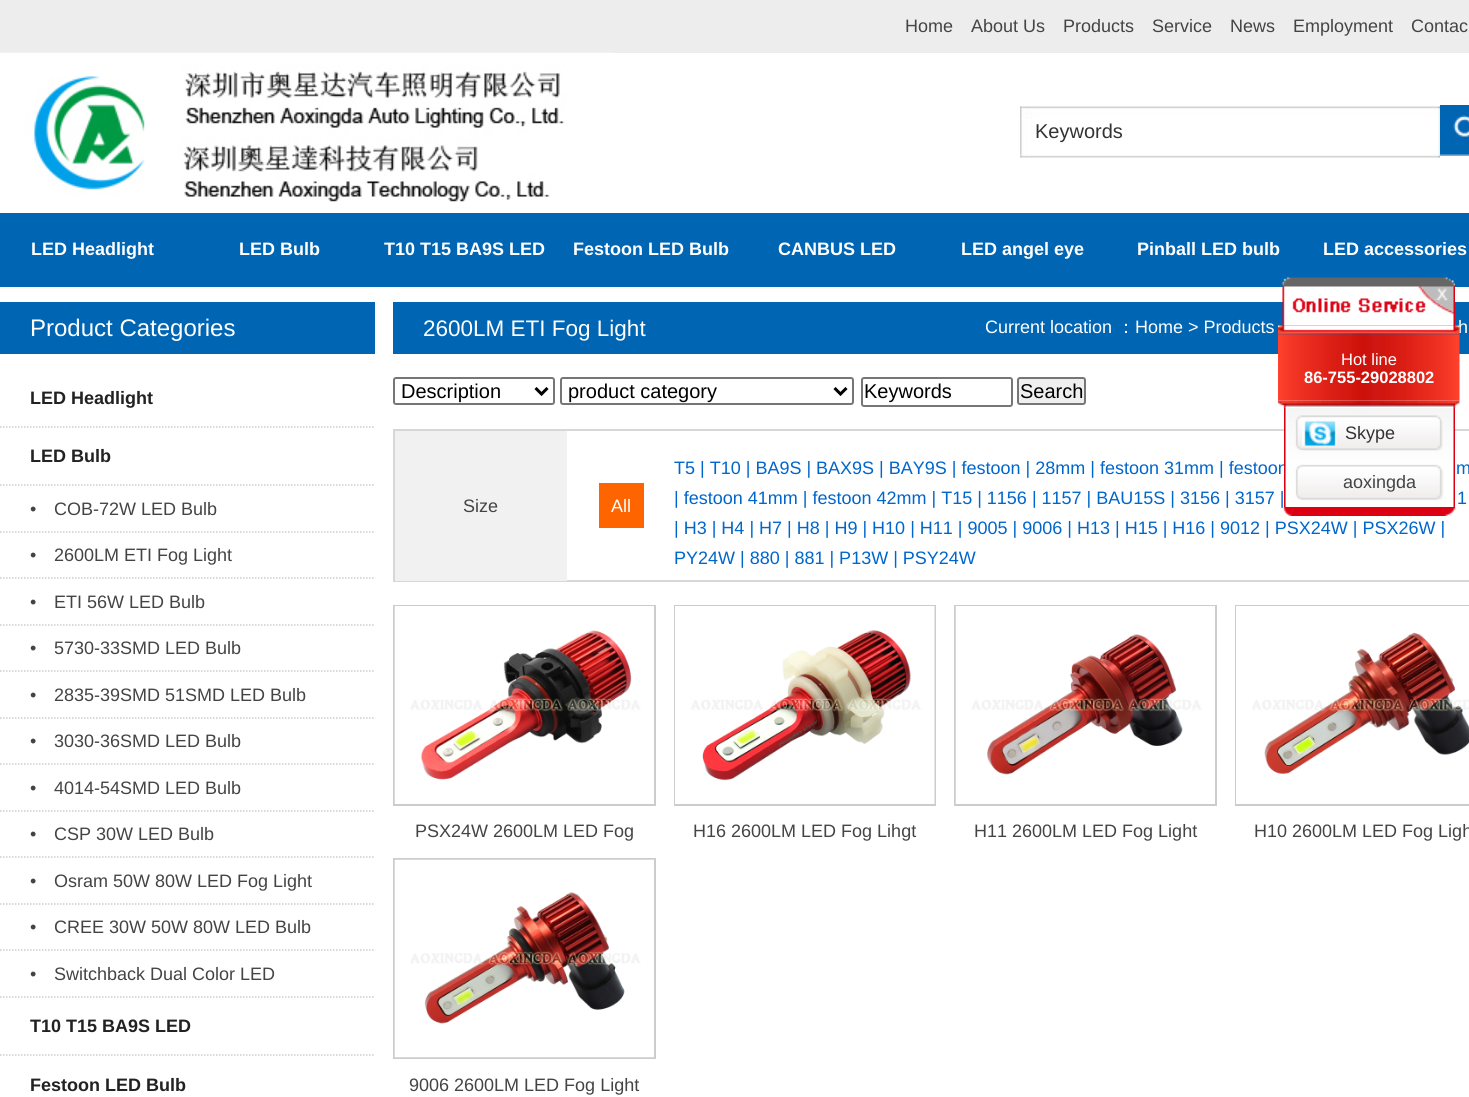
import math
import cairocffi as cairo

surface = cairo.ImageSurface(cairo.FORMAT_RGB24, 1469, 1097)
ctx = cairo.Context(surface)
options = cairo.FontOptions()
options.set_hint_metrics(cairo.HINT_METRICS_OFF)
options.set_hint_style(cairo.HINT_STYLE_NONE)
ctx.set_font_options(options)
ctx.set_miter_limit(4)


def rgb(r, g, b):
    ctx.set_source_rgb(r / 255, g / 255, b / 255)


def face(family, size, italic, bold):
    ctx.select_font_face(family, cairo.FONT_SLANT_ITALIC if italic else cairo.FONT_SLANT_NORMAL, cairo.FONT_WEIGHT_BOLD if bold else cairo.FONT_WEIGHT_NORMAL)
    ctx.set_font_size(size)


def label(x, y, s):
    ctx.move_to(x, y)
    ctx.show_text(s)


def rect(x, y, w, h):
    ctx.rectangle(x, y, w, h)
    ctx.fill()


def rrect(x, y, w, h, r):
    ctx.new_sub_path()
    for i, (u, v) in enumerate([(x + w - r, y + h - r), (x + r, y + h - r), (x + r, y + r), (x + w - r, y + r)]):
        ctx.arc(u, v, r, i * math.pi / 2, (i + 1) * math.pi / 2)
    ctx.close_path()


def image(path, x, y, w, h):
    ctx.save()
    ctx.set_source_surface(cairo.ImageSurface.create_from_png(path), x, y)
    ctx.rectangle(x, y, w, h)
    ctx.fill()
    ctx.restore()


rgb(255, 255, 255)
ctx.paint()
rgb(237, 237, 237)
rect(0, 0, 1469, 53)
face('Liberation Sans', 18, 0, 0)
rgb(68, 68, 68)
label(905, 32, 'Home')
label(971, 32, 'About Us')
label(1063, 32, 'Products')
label(1152, 32, 'Service')
label(1230, 32, 'News')
label(1293, 32, 'Employment')
label(1411, 32, 'Contac')
image('image0.png', 0, 52, 612, 150)
image('image1.png', 1020, 106, 420, 52)
face('Liberation Sans', 20, 0, 0)
rgb(51, 51, 51)
label(1035, 138, 'Keywords')
image('image2.png', 1440, 105, 29, 51)
rgb(0, 101, 179)
rect(0, 213, 1469, 74)
face('Liberation Sans', 18, 0, 1)
rgb(255, 255, 255)
label(31, 255, 'LED Headlight')
label(239, 255, 'LED Bulb')
label(384, 255, 'T10 T15 BA9S LED')
label(573, 255, 'Festoon LED Bulb')
label(778, 255, 'CANBUS LED')
label(961, 255, 'LED angel eye')
label(1137, 255, 'Pinball LED bulb')
label(1323, 255, 'LED accessories')
rgb(0, 101, 179)
rect(0, 302, 375, 52)
face('Liberation Sans', 24, 0, 0)
rgb(255, 255, 255)
label(30, 336, 'Product Categories')
ctx.new_path()
ctx.move_to(0, 427)
ctx.line_to(375, 427)
rgb(204, 204, 204)
ctx.set_line_width(1.5)
ctx.set_dash([1.5, 1.5])
ctx.stroke()
face('Liberation Sans', 18, 0, 1)
rgb(34, 34, 34)
label(30, 404, 'LED Headlight')
ctx.new_path()
ctx.move_to(0, 485)
ctx.line_to(375, 485)
rgb(204, 204, 204)
ctx.stroke()
rgb(34, 34, 34)
label(30, 462, 'LED Bulb')
ctx.new_path()
ctx.move_to(0, 532)
ctx.line_to(375, 532)
rgb(204, 204, 204)
ctx.stroke()
face('Liberation Sans', 18, 0, 0)
rgb(68, 68, 68)
label(30, 515, '•')
label(54, 515, 'COB-72W LED Bulb')
ctx.new_path()
ctx.move_to(0, 578)
ctx.line_to(375, 578)
rgb(204, 204, 204)
ctx.stroke()
rgb(68, 68, 68)
label(30, 561, '•')
label(54, 561, '2600LM ETI Fog Light')
ctx.new_path()
ctx.move_to(0, 625)
ctx.line_to(375, 625)
rgb(204, 204, 204)
ctx.stroke()
rgb(68, 68, 68)
label(30, 608, '•')
label(54, 608, 'ETI 56W LED Bulb')
ctx.new_path()
ctx.move_to(0, 671)
ctx.line_to(375, 671)
rgb(204, 204, 204)
ctx.stroke()
rgb(68, 68, 68)
label(30, 654, '•')
label(54, 654, '5730-33SMD LED Bulb')
ctx.new_path()
ctx.move_to(0, 718)
ctx.line_to(375, 718)
rgb(204, 204, 204)
ctx.stroke()
rgb(68, 68, 68)
label(30, 701, '•')
label(54, 701, '2835-39SMD 51SMD LED Bulb')
ctx.new_path()
ctx.move_to(0, 764)
ctx.line_to(375, 764)
rgb(204, 204, 204)
ctx.stroke()
rgb(68, 68, 68)
label(30, 747, '•')
label(54, 747, '3030-36SMD LED Bulb')
ctx.new_path()
ctx.move_to(0, 811)
ctx.line_to(375, 811)
rgb(204, 204, 204)
ctx.stroke()
rgb(68, 68, 68)
label(30, 794, '•')
label(54, 794, '4014-54SMD LED Bulb')
ctx.new_path()
ctx.move_to(0, 857)
ctx.line_to(375, 857)
rgb(204, 204, 204)
ctx.stroke()
rgb(68, 68, 68)
label(30, 840, '•')
label(54, 840, 'CSP 30W LED Bulb')
ctx.new_path()
ctx.move_to(0, 904)
ctx.line_to(375, 904)
rgb(204, 204, 204)
ctx.stroke()
rgb(68, 68, 68)
label(30, 887, '•')
label(54, 887, 'Osram 50W 80W LED Fog Light')
ctx.new_path()
ctx.move_to(0, 950)
ctx.line_to(375, 950)
rgb(204, 204, 204)
ctx.stroke()
rgb(68, 68, 68)
label(30, 933, '•')
label(54, 933, 'CREE 30W 50W 80W LED Bulb')
ctx.new_path()
ctx.move_to(0, 997)
ctx.line_to(375, 997)
rgb(204, 204, 204)
ctx.stroke()
rgb(68, 68, 68)
label(30, 980, '•')
label(54, 980, 'Switchback Dual Color LED')
ctx.new_path()
ctx.move_to(0, 1055)
ctx.line_to(375, 1055)
rgb(204, 204, 204)
ctx.stroke()
face('Liberation Sans', 18, 0, 1)
rgb(34, 34, 34)
label(30, 1032, 'T10 T15 BA9S LED')
label(30, 1091, 'Festoon LED Bulb')
rgb(0, 101, 179)
rect(393, 302, 1076, 52)
face('Liberation Sans', 22.5, 0, 0)
rgb(255, 255, 255)
label(423, 336, '2600LM ETI Fog Light')
face('Liberation Sans', 18, 0, 0)
label(985, 333, 'Current location')
face('WenQuanYi Zen Hei Medium', 18, 0, 0)
label(1117, 333, '：')
face('Liberation Sans', 18, 0, 0)
label(1135, 333, 'Home > Products')
label(1458, 333, 'h')
rrect(394, 378, 160, 26, 2)
rgb(118, 118, 118)
ctx.set_line_width(2)
ctx.set_dash([])
ctx.stroke()
ctx.new_path()
ctx.move_to(535.5, 388)
ctx.line_to(541.5, 394)
ctx.line_to(547.5, 388)
rgb(0, 0, 0)
ctx.set_line_width(3)
ctx.stroke()
face('Liberation Sans', 20, 0, 0)
label(401, 398, 'Description')
rrect(561, 378, 292, 26, 2)
rgb(118, 118, 118)
ctx.set_line_width(2)
ctx.stroke()
ctx.new_path()
ctx.move_to(834.5, 388)
ctx.line_to(840.5, 394)
ctx.line_to(846.5, 388)
rgb(0, 0, 0)
ctx.set_line_width(3)
ctx.stroke()
label(568, 398, 'product category')
rrect(862, 378, 150, 28, 2)
rgb(118, 118, 118)
ctx.set_line_width(2)
ctx.stroke()
rgb(0, 0, 0)
label(864, 398, 'Keywords')
rgb(239, 239, 239)
rrect(1018, 378, 67, 26, 2)
ctx.fill_preserve()
rgb(118, 118, 118)
ctx.stroke()
rgb(0, 0, 0)
label(1020, 398, 'Search')
ctx.rectangle(394, 430, 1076, 151)
rgb(215, 215, 215)
ctx.stroke()
rgb(241, 241, 241)
rect(395, 431, 172, 150)
face('Liberation Sans', 18, 0, 0)
rgb(68, 68, 68)
label(463, 512, 'Size')
rgb(254, 101, 0)
rect(599, 483, 45, 45)
rgb(255, 255, 255)
label(611, 512, 'All')
rgb(0, 102, 204)
label(674, 474, 'T5 | T10 | BA9S | BAX9S | BAY9S | festoon | 28mm | festoon 31mm | festoon')
label(1456, 474, 'm')
label(674, 504, '| festoon 41mm | festoon 42mm | T15 | 1156 | 1157 | BAU15S | 3156 | 3157 |')
label(1457, 504, '1')
label(674, 534, '| H3 | H4 | H7 | H8 | H9 | H10 | H11 | 9005 | 9006 | H13 | H15 | H16 | 9012 | PSX24W | PSX26W |')
label(674, 564, 'PY24W | 880 | 881 | P13W | PSY24W')
ctx.rectangle(394, 606, 261, 199)
rgb(204, 204, 204)
ctx.stroke()
image('image3.png', 394, 606, 260, 198)
rgb(68, 68, 68)
label(415, 837, 'PSX24W 2600LM LED Fog')
ctx.rectangle(675, 606, 260, 199)
rgb(204, 204, 204)
ctx.stroke()
image('image4.png', 675, 606, 260, 198)
rgb(68, 68, 68)
label(693, 837, 'H16 2600LM LED Fog Lihgt')
ctx.rectangle(955, 606, 261, 199)
rgb(204, 204, 204)
ctx.stroke()
image('image5.png', 955, 606, 260, 198)
rgb(68, 68, 68)
label(974, 837, 'H11 2600LM LED Fog Light')
ctx.rectangle(1236, 606, 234, 199)
rgb(204, 204, 204)
ctx.stroke()
image('image6.png', 1236, 606, 233, 198)
rgb(68, 68, 68)
label(1254, 837, 'H10 2600LM LED Fog Ligh')
ctx.rectangle(394, 859, 261, 199)
rgb(204, 204, 204)
ctx.stroke()
image('image7.png', 394, 859, 260, 199)
rgb(68, 68, 68)
label(409, 1091, '9006 2600LM LED Fog Light')
image('image8.png', 1282, 277, 173, 49)
image('image10.png', 1278, 334, 182, 67)
image('image9.png', 1278, 325, 182, 10)
face('Liberation Sans', 16.5, 0, 0)
rgb(255, 255, 255)
label(1341, 365, 'Hot line')
face('Liberation Sans', 16.5, 0, 1)
label(1304, 383, '86-755-29028802')
image('image11.png', 1278, 400, 182, 8)
image('image12.png', 1284, 408, 171, 99)
image('image13.png', 1295, 415, 148, 36)
image('image14.png', 1302, 421, 35, 25)
face('Liberation Sans', 18, 0, 0)
rgb(51, 51, 51)
label(1345, 439, 'Skype')
image('image15.png', 1295, 464, 149, 37)
rgb(68, 68, 68)
label(1343, 488, 'aoxingda')
image('image16.png', 1283, 507, 173, 9)
surface.write_to_png('render.png')
